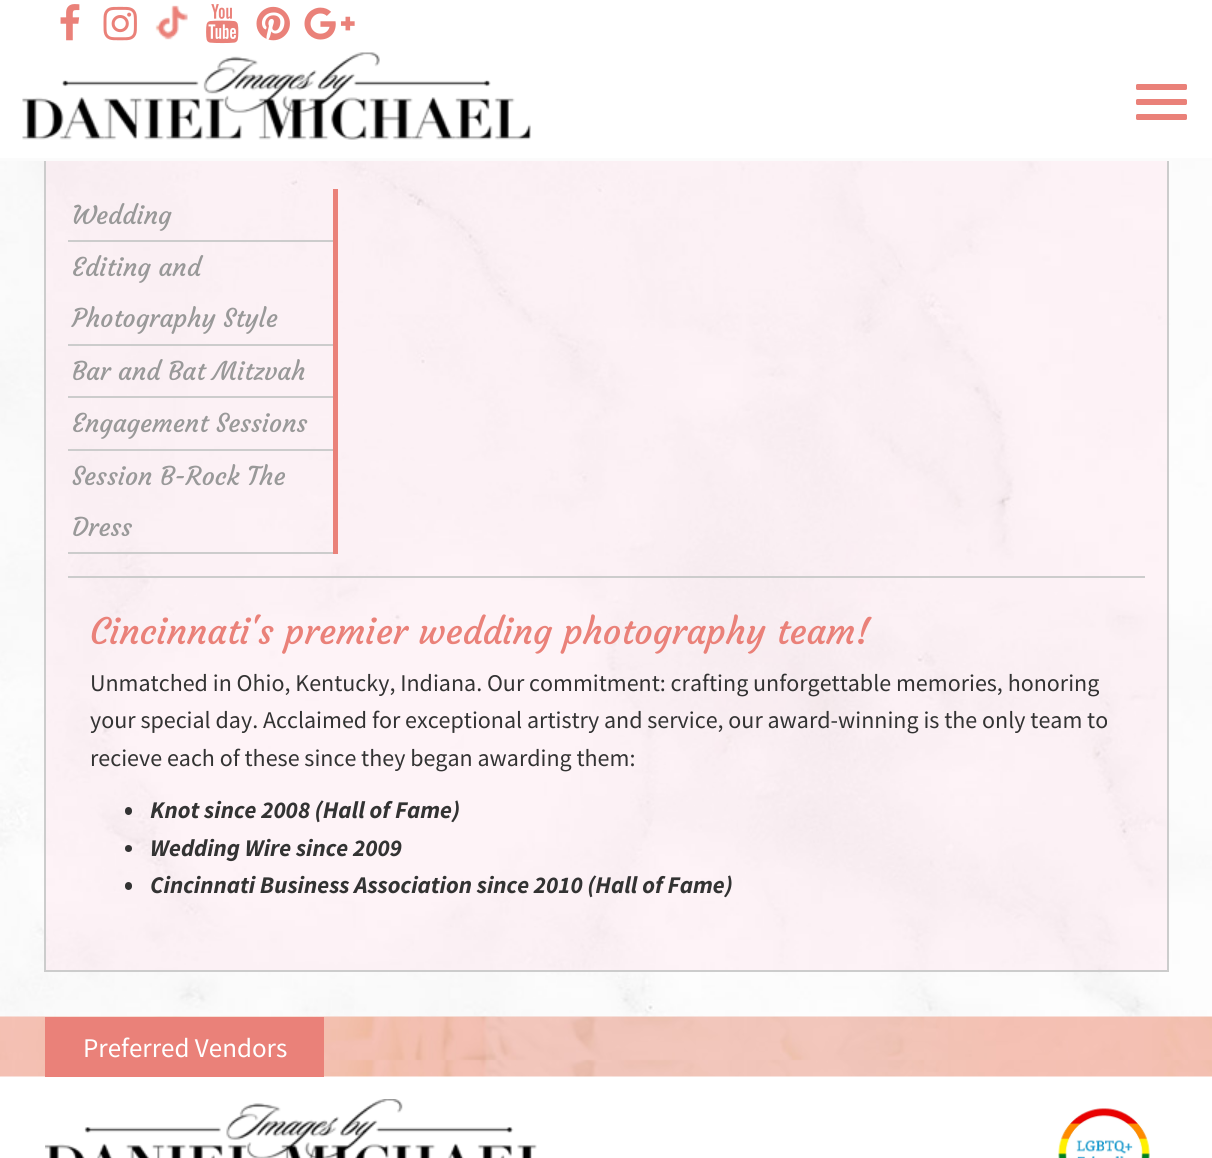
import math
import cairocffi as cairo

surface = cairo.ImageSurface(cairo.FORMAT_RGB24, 1212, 1158)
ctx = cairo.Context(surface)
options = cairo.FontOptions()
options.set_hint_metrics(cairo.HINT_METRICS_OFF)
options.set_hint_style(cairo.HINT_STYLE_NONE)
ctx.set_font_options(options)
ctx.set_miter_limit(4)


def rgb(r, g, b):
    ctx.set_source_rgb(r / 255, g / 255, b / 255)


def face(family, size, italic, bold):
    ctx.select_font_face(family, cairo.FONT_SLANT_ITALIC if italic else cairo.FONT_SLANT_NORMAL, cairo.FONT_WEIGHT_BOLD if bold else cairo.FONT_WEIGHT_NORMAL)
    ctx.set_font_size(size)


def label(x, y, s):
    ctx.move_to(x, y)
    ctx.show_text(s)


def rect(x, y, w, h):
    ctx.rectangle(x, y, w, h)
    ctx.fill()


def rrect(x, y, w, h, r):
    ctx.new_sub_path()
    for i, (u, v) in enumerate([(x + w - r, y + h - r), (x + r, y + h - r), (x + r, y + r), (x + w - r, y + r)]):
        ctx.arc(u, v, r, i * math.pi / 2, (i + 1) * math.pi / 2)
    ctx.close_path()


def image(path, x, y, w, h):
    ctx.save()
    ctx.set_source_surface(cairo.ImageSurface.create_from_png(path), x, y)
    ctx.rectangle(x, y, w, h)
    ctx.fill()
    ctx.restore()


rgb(255, 255, 255)
ctx.paint()
image('image0.png', 60, 4, 20, 37)
image('image1.png', 103, 6, 34, 35)
image('image2.png', 155, 5, 33, 35)
image('image3.png', 206, 4, 33, 40)
image('image4.png', 256, 6, 34, 35)
image('image5.png', 304, 7, 51, 33)
image('image7.png', 0, 161, 1212, 856)
ctx.set_source_rgba(1, 0.871, 0.922, 0.35)
rect(46, 161, 1121, 809)
ctx.rectangle(45, 114, 1123, 857)
rgb(204, 204, 204)
ctx.stroke()
rgb(255, 255, 255)
rect(44, 113, 1125, 45)
rgb(251, 251, 251)
rect(0, 158, 1212, 3)
image('image6.png', 22, 52, 509, 88)
rgb(234, 129, 121)
rrect(1136, 84, 51, 6, 1.5)
ctx.fill()
rrect(1136, 99, 51, 6, 1.5)
ctx.fill()
rrect(1136, 114, 51, 6, 1.5)
ctx.fill()
rect(333, 189, 5, 365)
rgb(204, 204, 204)
rect(68, 240, 265, 2)
face('Courgette', 25.5, 0, 0)
rgb(153, 153, 153)
label(72, 224, 'Wedding')
rgb(204, 204, 204)
rect(68, 344, 265, 2)
rgb(153, 153, 153)
label(72, 276, 'Editing and')
label(72, 327, 'Photography Style')
rgb(204, 204, 204)
rect(68, 396, 265, 2)
rgb(153, 153, 153)
label(72, 380, 'Bar and Bat Mitzvah')
rgb(204, 204, 204)
rect(68, 449, 265, 2)
rgb(153, 153, 153)
label(72, 432, 'Engagement Sessions')
rgb(204, 204, 204)
rect(68, 552, 265, 2)
rgb(153, 153, 153)
label(72, 485, 'Session B-Rock The')
label(72, 536, 'Dress')
rgb(204, 204, 204)
rect(68, 576, 1077, 2)
face('Courgette', 36, 0, 0)
rgb(234, 129, 121)
label(90, 644, 'Cincinnati\'s premier wedding photography team!')
face('Source Sans Pro', 24, 0, 0)
rgb(51, 51, 51)
label(90, 691, 'Unmatched in Ohio, Kentucky, Indiana. Our commitment: crafting unforgettable memories, honoring')
label(90, 728, 'your special day. Acclaimed for exceptional artistry and service, our award-winning is the only team to')
label(90, 766, 'recieve each of these since they began awarding them:')
rrect(125, 807, 7, 8, 3.5)
ctx.fill()
face('Source Sans Pro', 24, 1, 1)
label(150, 818, 'Knot since 2008 (Hall of Fame)')
ctx.new_path()
ctx.arc(128.5, 848.5, 3.5, 0, 2 * math.pi)
ctx.fill()
label(150, 856, 'Wedding Wire since 2009')
rrect(125, 882, 7, 8, 3.5)
ctx.fill()
label(150, 893, 'Cincinnati Business Association since 2010 (Hall of Fame)')
image('image8.png', 0, 1016, 1212, 61)
rgb(234, 129, 121)
rect(45, 1017, 279, 60)
face('Source Sans Pro', 27, 0, 0)
rgb(255, 255, 255)
label(83, 1057, 'Preferred Vendors')
image('image9.png', 45, 1099, 492, 59)
image('image10.png', 1058, 1108, 92, 50)
surface.write_to_png('render.png')
